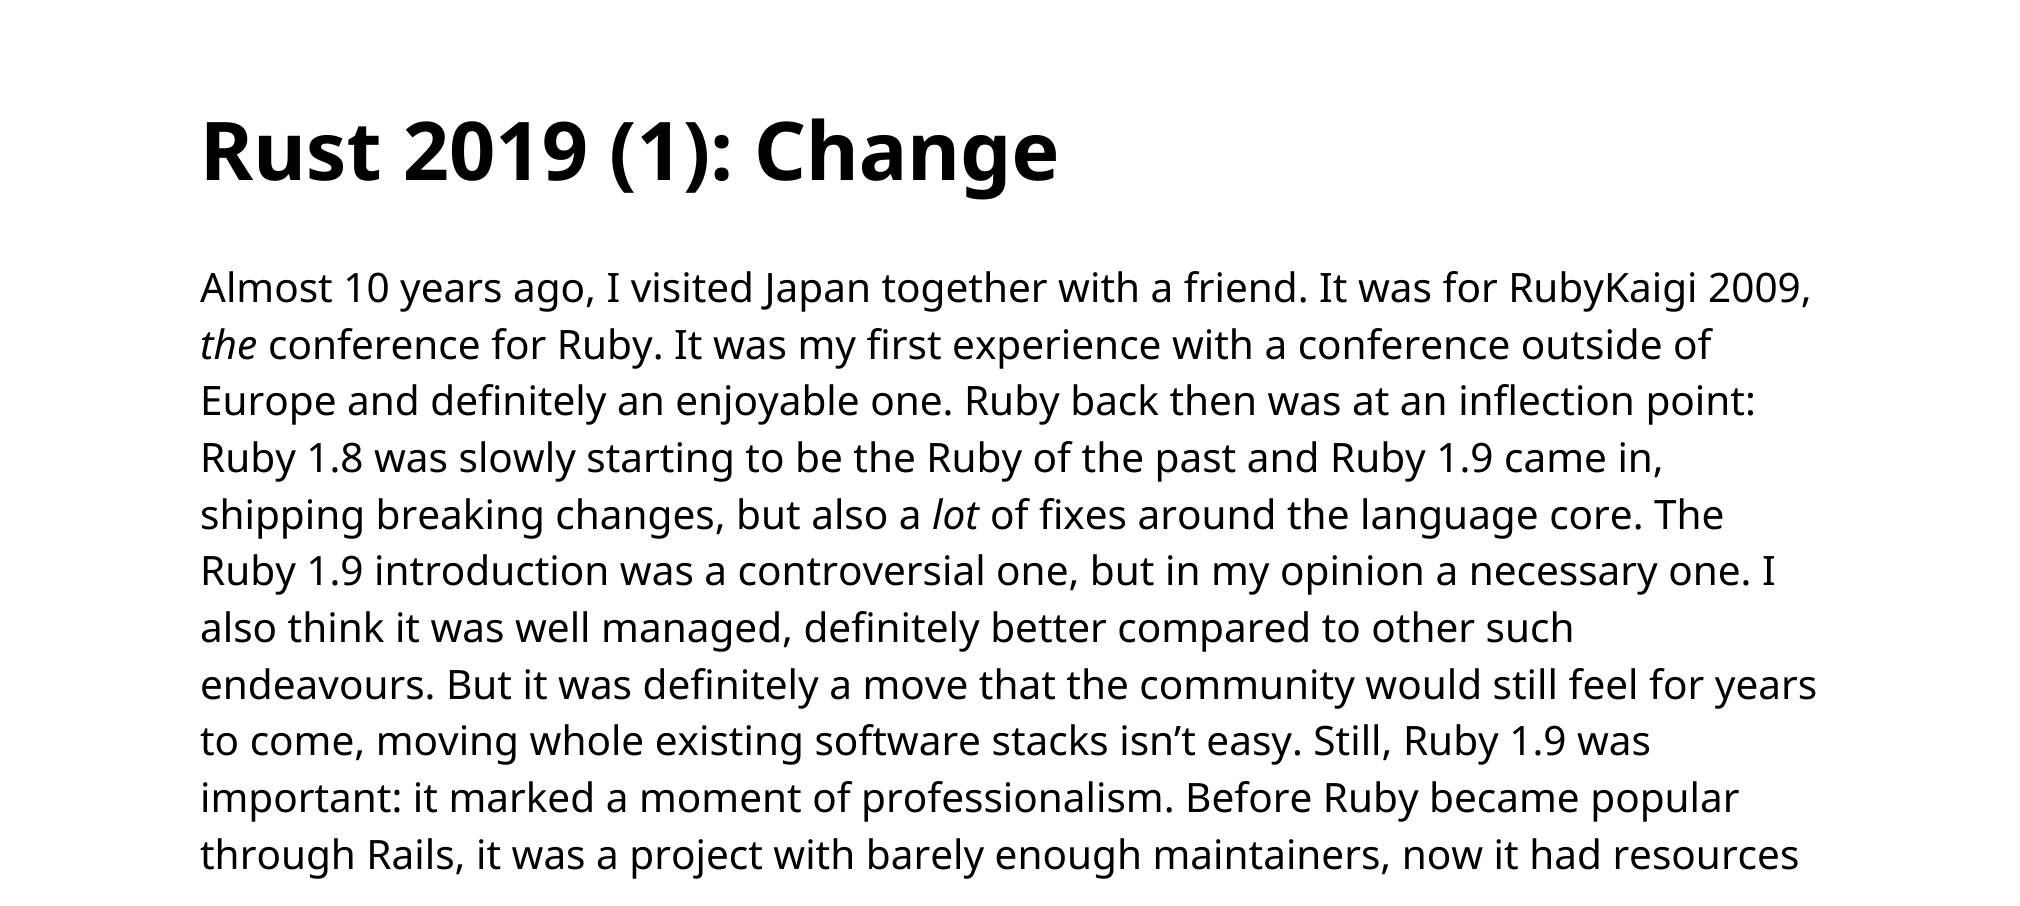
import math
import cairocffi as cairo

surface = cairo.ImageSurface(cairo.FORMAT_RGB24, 2020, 906)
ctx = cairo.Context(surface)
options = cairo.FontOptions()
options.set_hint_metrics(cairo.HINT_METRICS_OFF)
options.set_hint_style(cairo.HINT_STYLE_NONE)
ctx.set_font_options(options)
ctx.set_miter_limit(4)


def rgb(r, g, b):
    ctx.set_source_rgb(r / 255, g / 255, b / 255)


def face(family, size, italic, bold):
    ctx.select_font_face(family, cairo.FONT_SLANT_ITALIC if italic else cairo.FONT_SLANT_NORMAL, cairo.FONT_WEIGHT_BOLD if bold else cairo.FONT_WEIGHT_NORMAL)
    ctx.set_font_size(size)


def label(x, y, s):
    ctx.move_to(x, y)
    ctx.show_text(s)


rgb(255, 255, 255)
ctx.paint()
face('Noto Sans', 81, 0, 1)
rgb(0, 0, 0)
label(200, 180, 'Rust 2019 (1): Change')
face('Noto Sans', 40.5, 0, 0)
label(200, 302, 'Almost 10 years ago, I visited Japan together with a friend. It was for RubyKaigi 2009,')
face('Noto Sans', 40.5, 1, 0)
label(200, 359, 'the')
face('Noto Sans', 40.5, 0, 0)
label(268, 359, 'conference for Ruby. It was my first experience with a conference outside of')
label(200, 415, 'Europe and definitely an enjoyable one. Ruby back then was at an inflection point:')
label(200, 472, 'Ruby 1.8 was slowly starting to be the Ruby of the past and Ruby 1.9 came in,')
label(200, 529, 'shipping breaking changes, but also a')
face('Noto Sans', 40.5, 1, 0)
label(932, 529, 'lot')
face('Noto Sans', 40.5, 0, 0)
label(990, 529, 'of fixes around the language core. The')
label(200, 585, 'Ruby 1.9 introduction was a controversial one, but in my opinion a necessary one. I')
label(200, 642, 'also think it was well managed, definitely better compared to other such')
label(200, 699, 'endeavours. But it was definitely a move that the community would still feel for years')
label(200, 755, 'to come, moving whole existing software stacks isn’t easy. Still, Ruby 1.9 was')
label(200, 812, 'important: it marked a moment of professionalism. Before Ruby became popular')
label(200, 869, 'through Rails, it was a project with barely enough maintainers, now it had resources')
surface.write_to_png('render.png')
